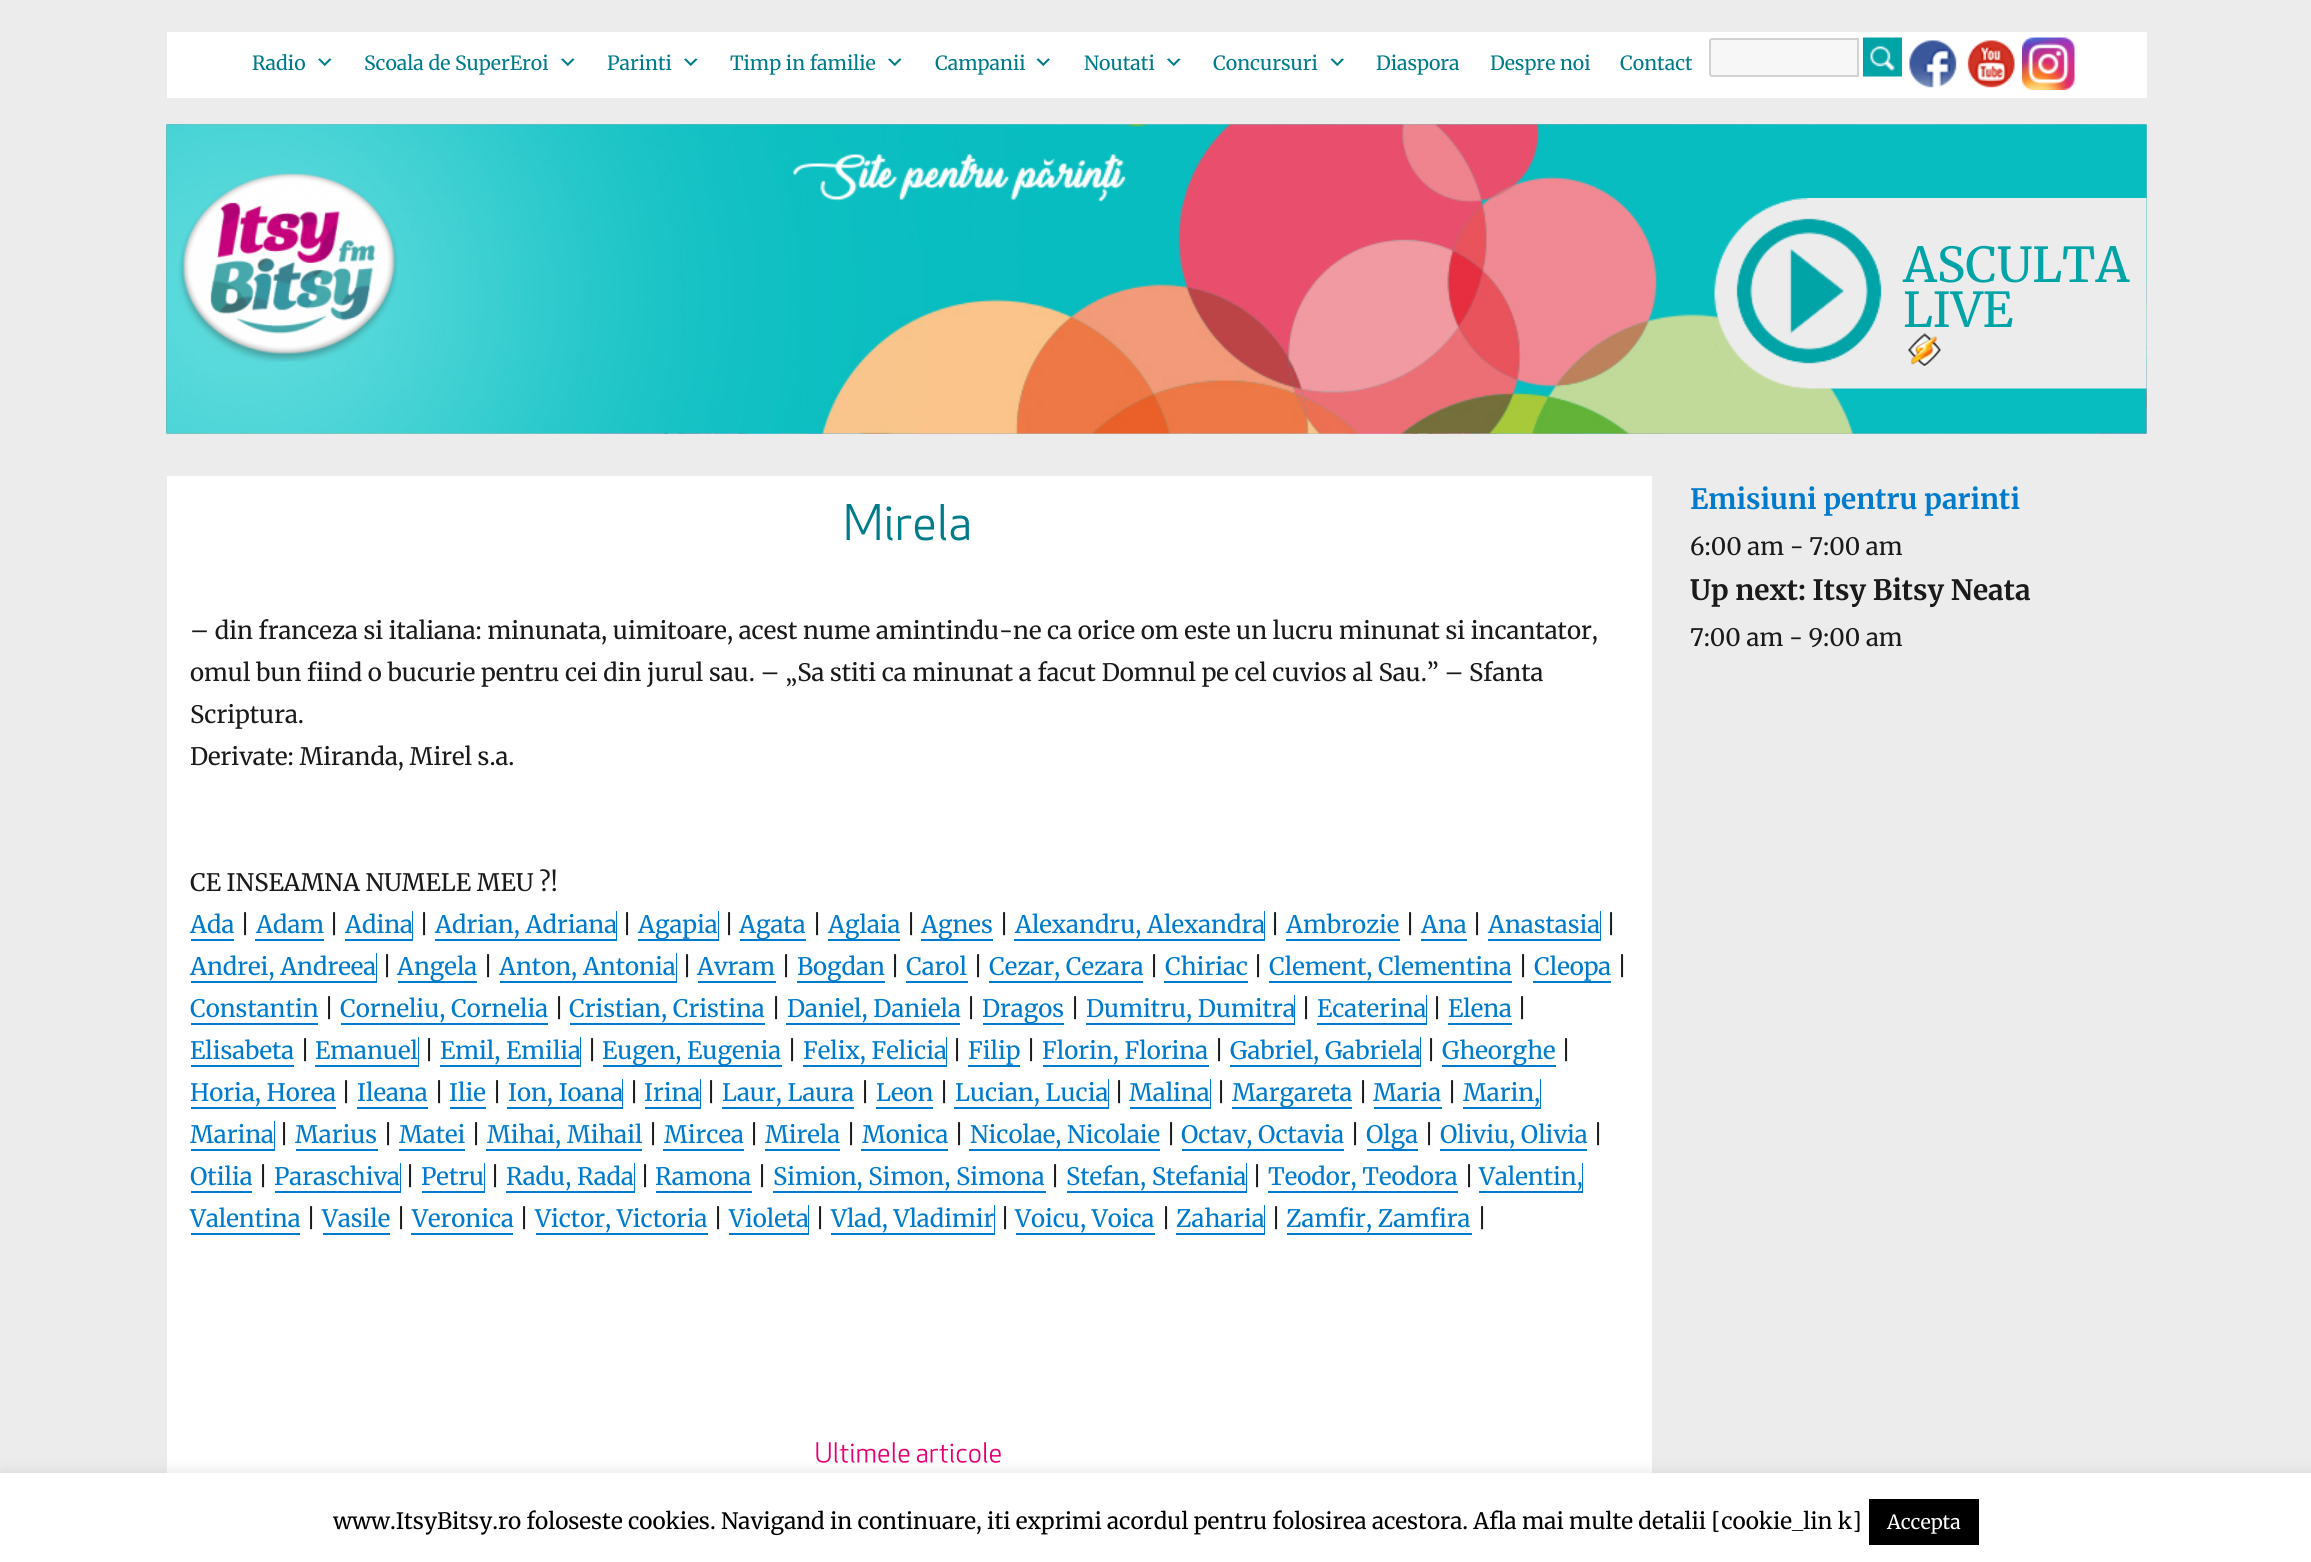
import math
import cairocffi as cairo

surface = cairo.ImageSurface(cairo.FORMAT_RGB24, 2311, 1562)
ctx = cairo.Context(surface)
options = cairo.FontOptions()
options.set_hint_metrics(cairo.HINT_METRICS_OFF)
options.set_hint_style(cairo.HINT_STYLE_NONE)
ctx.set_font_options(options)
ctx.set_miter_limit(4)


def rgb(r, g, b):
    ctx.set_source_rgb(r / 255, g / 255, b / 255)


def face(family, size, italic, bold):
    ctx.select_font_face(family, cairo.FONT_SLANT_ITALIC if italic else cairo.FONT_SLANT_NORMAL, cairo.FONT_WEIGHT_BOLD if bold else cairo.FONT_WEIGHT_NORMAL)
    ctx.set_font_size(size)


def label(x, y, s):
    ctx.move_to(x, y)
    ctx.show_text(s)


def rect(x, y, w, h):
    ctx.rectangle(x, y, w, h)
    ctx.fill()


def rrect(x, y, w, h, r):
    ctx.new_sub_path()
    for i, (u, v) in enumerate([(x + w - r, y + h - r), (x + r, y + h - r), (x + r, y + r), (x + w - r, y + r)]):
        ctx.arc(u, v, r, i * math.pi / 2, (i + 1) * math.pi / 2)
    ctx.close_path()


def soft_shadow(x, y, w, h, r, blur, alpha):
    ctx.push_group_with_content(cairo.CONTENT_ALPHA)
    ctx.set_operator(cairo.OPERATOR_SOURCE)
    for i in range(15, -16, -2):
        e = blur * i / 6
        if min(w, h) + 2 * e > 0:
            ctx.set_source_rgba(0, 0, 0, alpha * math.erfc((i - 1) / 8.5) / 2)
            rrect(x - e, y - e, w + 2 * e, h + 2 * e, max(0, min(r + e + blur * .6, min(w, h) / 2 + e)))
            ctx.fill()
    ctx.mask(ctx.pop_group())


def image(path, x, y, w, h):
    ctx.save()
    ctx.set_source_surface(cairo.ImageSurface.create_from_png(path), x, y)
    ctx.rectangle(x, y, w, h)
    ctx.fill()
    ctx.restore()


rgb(236, 236, 237)
ctx.paint()
rgb(255, 255, 255)
rect(167, 32, 1980, 66)
face('Merriweather', 19.5, 0, 0)
rgb(0, 123, 137)
label(252, 70, 'Radio')
image('image0.png', 318, 58, 14, 8)
label(364, 70, 'Scoala de SuperEroi')
image('image0.png', 561, 58, 14, 8)
label(607, 70, 'Parinti')
image('image0.png', 684, 58, 14, 8)
label(730, 70, 'Timp in familie')
image('image0.png', 888, 58, 14, 8)
label(935, 70, 'Campanii')
image('image1.png', 1036, 58, 14, 8)
label(1084, 70, 'Noutati')
image('image0.png', 1167, 58, 14, 8)
label(1213, 70, 'Concursuri')
image('image1.png', 1330, 58, 14, 8)
label(1376, 70, 'Diaspora')
label(1490, 70, 'Despre noi')
label(1620, 70, 'Contact')
rgb(247, 247, 247)
ctx.new_path()
ctx.move_to(1712, 39)
ctx.line_to(1858, 39)
ctx.line_to(1858, 76)
ctx.line_to(1712, 76)
ctx.curve_to(1711, 76, 1710, 75, 1710, 74)
ctx.line_to(1710, 41)
ctx.curve_to(1710, 40, 1711, 39, 1712, 39)
ctx.close_path()
ctx.fill_preserve()
rgb(209, 209, 209)
ctx.stroke()
image('image2.png', 1863, 37, 39, 40)
image('image3.png', 1909, 40, 48, 48)
image('image4.png', 1967, 40, 48, 48)
image('image5.png', 2022, 37, 53, 53)
image('image6.png', 166, 124, 1981, 310)
image('image7.png', 166, 124, 1981, 310)
image('image8.png', 178, 173, 220, 189)
image('image9.png', 1714, 198, 433, 191)
image('image10.png', 1714, 198, 168, 177)
face('Merriweather', 48, 0, 0)
rgb(0, 163, 166)
label(1903, 282, 'ASCULTA')
label(1903, 327, 'LIVE')
image('image11.png', 1908, 333, 33, 33)
face('Merriweather', 28, 0, 1)
rgb(0, 122, 204)
label(1690, 509, 'Emisiuni pentru parinti')
face('Merriweather', 24, 0, 0)
rgb(26, 26, 26)
label(1690, 555, '6:00 am - 7:00 am')
face('Merriweather', 28, 0, 1)
label(1690, 600, 'Up next: Itsy Bitsy Neata')
face('Merriweather', 24, 0, 0)
label(1690, 646, '7:00 am - 9:00 am')
rgb(255, 255, 255)
rect(167, 476, 1485, 997)
image('image12.png', 846, 504, 123, 37)
rgb(26, 26, 26)
label(190, 639, '– din franceza si italiana: minunata, uimitoare, acest nume amintindu-ne ca orice om este un lucru minunat si incantator,')
label(190, 681, 'omul bun fiind o bucurie pentru cei din jurul sau. – „Sa stiti ca minunat a facut Domnul pe cel cuvios al Sau.” – Sfanta')
label(190, 723, 'Scriptura.')
label(190, 765, 'Derivate: Miranda, Mirel s.a.')
label(190, 891, 'CE INSEAMNA NUMELE MEU ?!')
rgb(0, 122, 204)
label(190, 933, 'Ada')
rect(191, 939, 43, 2)
rgb(26, 26, 26)
label(240, 933, '|')
rgb(0, 122, 204)
label(256, 933, 'Adam')
rect(255, 939, 69, 2)
rgb(26, 26, 26)
label(329, 933, '|')
rgb(0, 122, 204)
ctx.new_path()
ctx.move_to(345, 939)
ctx.line_to(345, 941)
ctx.line_to(413, 941)
ctx.line_to(413, 911)
ctx.line_to(412, 911)
ctx.line_to(412, 939)
ctx.close_path()
ctx.fill()
label(345, 933, 'Adina')
rgb(26, 26, 26)
label(419, 933, '|')
rgb(0, 122, 204)
ctx.new_path()
ctx.move_to(435, 939)
ctx.line_to(435, 941)
ctx.line_to(617, 941)
ctx.line_to(617, 911)
ctx.line_to(616, 911)
ctx.line_to(616, 939)
ctx.close_path()
ctx.fill()
label(435, 933, 'Adrian, Adriana')
rgb(26, 26, 26)
label(622, 933, '|')
rgb(0, 122, 204)
ctx.new_path()
ctx.move_to(638, 939)
ctx.line_to(638, 941)
ctx.line_to(719, 941)
ctx.line_to(719, 911)
ctx.line_to(718, 911)
ctx.line_to(718, 939)
ctx.close_path()
ctx.fill()
label(638, 933, 'Agapia')
rgb(26, 26, 26)
label(724, 933, '|')
rgb(0, 122, 204)
ctx.new_path()
ctx.move_to(740, 939)
ctx.line_to(740, 941)
ctx.line_to(806, 941)
ctx.line_to(806, 911)
ctx.line_to(806, 939)
ctx.close_path()
ctx.fill()
label(739, 933, 'Agata')
rgb(26, 26, 26)
label(812, 933, '|')
rgb(0, 122, 204)
rect(828, 939, 72, 2)
label(828, 933, 'Aglaia')
rgb(26, 26, 26)
label(906, 933, '|')
rgb(0, 122, 204)
rect(921, 939, 72, 2)
label(921, 933, 'Agnes')
rgb(26, 26, 26)
label(999, 933, '|')
rgb(0, 122, 204)
ctx.new_path()
ctx.move_to(1014, 939)
ctx.line_to(1014, 941)
ctx.line_to(1265, 941)
ctx.line_to(1265, 911)
ctx.line_to(1264, 911)
ctx.line_to(1264, 939)
ctx.close_path()
ctx.fill()
label(1015, 933, 'Alexandru, Alexandra')
rgb(26, 26, 26)
label(1270, 933, '|')
rgb(0, 122, 204)
label(1286, 933, 'Ambrozie')
ctx.new_path()
ctx.move_to(1286, 939)
ctx.line_to(1286, 941)
ctx.line_to(1400, 941)
ctx.line_to(1400, 911)
ctx.line_to(1400, 939)
ctx.close_path()
ctx.fill()
rgb(26, 26, 26)
label(1405, 933, '|')
rgb(0, 122, 204)
label(1421, 933, 'Ana')
rect(1421, 939, 46, 2)
rgb(26, 26, 26)
label(1472, 933, '|')
rgb(0, 122, 204)
ctx.new_path()
ctx.move_to(1488, 939)
ctx.line_to(1488, 941)
ctx.line_to(1601, 941)
ctx.line_to(1601, 911)
ctx.line_to(1600, 911)
ctx.line_to(1600, 939)
ctx.close_path()
ctx.fill()
label(1488, 933, 'Anastasia')
rgb(26, 26, 26)
label(1606, 933, '|')
rgb(0, 122, 204)
ctx.new_path()
ctx.move_to(191, 981)
ctx.line_to(191, 983)
ctx.line_to(377, 983)
ctx.line_to(377, 953)
ctx.line_to(376, 953)
ctx.line_to(376, 981)
ctx.close_path()
ctx.fill()
label(190, 975, 'Andrei, Andreea')
rgb(26, 26, 26)
label(382, 975, '|')
rgb(0, 122, 204)
rect(398, 981, 79, 2)
label(397, 975, 'Angela')
rgb(26, 26, 26)
label(483, 975, '|')
rgb(0, 122, 204)
ctx.new_path()
ctx.move_to(500, 981)
ctx.line_to(500, 983)
ctx.line_to(677, 983)
ctx.line_to(677, 953)
ctx.line_to(676, 953)
ctx.line_to(676, 981)
ctx.close_path()
ctx.fill()
label(499, 975, 'Anton, Antonia')
rgb(26, 26, 26)
label(682, 975, '|')
rgb(0, 122, 204)
label(697, 975, 'Avram')
ctx.new_path()
ctx.move_to(698, 981)
ctx.line_to(698, 983)
ctx.line_to(776, 983)
ctx.line_to(776, 953)
ctx.line_to(776, 981)
ctx.close_path()
ctx.fill()
rgb(26, 26, 26)
label(781, 975, '|')
rgb(0, 122, 204)
rect(797, 981, 88, 2)
label(797, 975, 'Bogdan')
rgb(26, 26, 26)
label(890, 975, '|')
rgb(0, 122, 204)
label(906, 975, 'Carol')
ctx.new_path()
ctx.move_to(906, 981)
ctx.line_to(906, 983)
ctx.line_to(968, 983)
ctx.line_to(968, 953)
ctx.line_to(968, 981)
ctx.close_path()
ctx.fill()
rgb(26, 26, 26)
label(973, 975, '|')
rgb(0, 122, 204)
label(989, 975, 'Cezar, Cezara')
rect(989, 981, 154, 2)
rgb(26, 26, 26)
label(1149, 975, '|')
rgb(0, 122, 204)
label(1165, 975, 'Chiriac')
rect(1164, 981, 84, 2)
rgb(26, 26, 26)
label(1253, 975, '|')
rgb(0, 122, 204)
label(1269, 975, 'Clement, Clementina')
rect(1269, 981, 243, 2)
rgb(26, 26, 26)
label(1518, 975, '|')
rgb(0, 122, 204)
label(1534, 975, 'Cleopa')
rect(1533, 981, 78, 2)
rgb(26, 26, 26)
label(1617, 975, '|')
rgb(0, 122, 204)
label(190, 1017, 'Constantin')
rect(191, 1023, 127, 2)
rgb(26, 26, 26)
label(324, 1017, '|')
rgb(0, 122, 204)
label(340, 1017, 'Corneliu, Cornelia')
ctx.new_path()
ctx.move_to(341, 1023)
ctx.line_to(341, 1025)
ctx.line_to(548, 1025)
ctx.line_to(548, 995)
ctx.line_to(548, 1023)
ctx.close_path()
ctx.fill()
rgb(26, 26, 26)
label(554, 1017, '|')
rgb(0, 122, 204)
label(569, 1017, 'Cristian, Cristina')
rect(570, 1023, 195, 2)
rgb(26, 26, 26)
label(771, 1017, '|')
rgb(0, 122, 204)
label(787, 1017, 'Daniel, Daniela')
rect(786, 1023, 174, 2)
rgb(26, 26, 26)
label(966, 1017, '|')
rgb(0, 122, 204)
ctx.new_path()
ctx.move_to(983, 1023)
ctx.line_to(983, 1025)
ctx.line_to(1064, 1025)
ctx.line_to(1064, 995)
ctx.line_to(1064, 1023)
ctx.close_path()
ctx.fill()
label(982, 1017, 'Dragos')
rgb(26, 26, 26)
label(1070, 1017, '|')
rgb(0, 122, 204)
ctx.new_path()
ctx.move_to(1086, 1023)
ctx.line_to(1086, 1025)
ctx.line_to(1295, 1025)
ctx.line_to(1295, 995)
ctx.line_to(1294, 995)
ctx.line_to(1294, 1023)
ctx.close_path()
ctx.fill()
label(1086, 1017, 'Dumitru, Dumitra')
rgb(26, 26, 26)
label(1301, 1017, '|')
rgb(0, 122, 204)
ctx.new_path()
ctx.move_to(1317, 1023)
ctx.line_to(1317, 1025)
ctx.line_to(1427, 1025)
ctx.line_to(1427, 995)
ctx.line_to(1426, 995)
ctx.line_to(1426, 1023)
ctx.close_path()
ctx.fill()
label(1317, 1017, 'Ecaterina')
rgb(26, 26, 26)
label(1432, 1017, '|')
rgb(0, 122, 204)
label(1448, 1017, 'Elena')
rect(1448, 1023, 64, 2)
rgb(26, 26, 26)
label(1517, 1017, '|')
rgb(0, 122, 204)
label(190, 1059, 'Elisabeta')
rect(191, 1065, 103, 2)
rgb(26, 26, 26)
label(300, 1059, '|')
rgb(0, 122, 204)
ctx.new_path()
ctx.move_to(315, 1065)
ctx.line_to(315, 1067)
ctx.line_to(419, 1067)
ctx.line_to(419, 1037)
ctx.line_to(418, 1037)
ctx.line_to(418, 1065)
ctx.close_path()
ctx.fill()
label(315, 1059, 'Emanuel')
rgb(26, 26, 26)
label(424, 1059, '|')
rgb(0, 122, 204)
ctx.new_path()
ctx.move_to(440, 1065)
ctx.line_to(440, 1067)
ctx.line_to(581, 1067)
ctx.line_to(581, 1037)
ctx.line_to(580, 1037)
ctx.line_to(580, 1065)
ctx.close_path()
ctx.fill()
label(440, 1059, 'Emil, Emilia')
rgb(26, 26, 26)
label(587, 1059, '|')
rgb(0, 122, 204)
ctx.new_path()
ctx.move_to(603, 1065)
ctx.line_to(603, 1067)
ctx.line_to(782, 1067)
ctx.line_to(782, 1037)
ctx.line_to(782, 1065)
ctx.close_path()
ctx.fill()
label(602, 1059, 'Eugen, Eugenia')
rgb(26, 26, 26)
label(787, 1059, '|')
rgb(0, 122, 204)
ctx.new_path()
ctx.move_to(803, 1065)
ctx.line_to(803, 1067)
ctx.line_to(947, 1067)
ctx.line_to(947, 1037)
ctx.line_to(946, 1037)
ctx.line_to(946, 1065)
ctx.close_path()
ctx.fill()
label(803, 1059, 'Felix, Felicia')
rgb(26, 26, 26)
label(952, 1059, '|')
rgb(0, 122, 204)
label(968, 1059, 'Filip')
rect(968, 1065, 52, 2)
rgb(26, 26, 26)
label(1026, 1059, '|')
rgb(0, 122, 204)
label(1042, 1059, 'Florin, Florina')
rect(1043, 1065, 166, 2)
rgb(26, 26, 26)
label(1214, 1059, '|')
rgb(0, 122, 204)
ctx.new_path()
ctx.move_to(1230, 1065)
ctx.line_to(1230, 1067)
ctx.line_to(1421, 1067)
ctx.line_to(1421, 1037)
ctx.line_to(1420, 1037)
ctx.line_to(1420, 1065)
ctx.close_path()
ctx.fill()
label(1230, 1059, 'Gabriel, Gabriela')
rgb(26, 26, 26)
label(1426, 1059, '|')
rgb(0, 122, 204)
ctx.new_path()
ctx.move_to(1442, 1065)
ctx.line_to(1442, 1067)
ctx.line_to(1556, 1067)
ctx.line_to(1556, 1037)
ctx.line_to(1556, 1065)
ctx.close_path()
ctx.fill()
label(1442, 1059, 'Gheorghe')
rgb(26, 26, 26)
label(1561, 1059, '|')
rgb(0, 122, 204)
label(190, 1101, 'Horia, Horea')
rect(191, 1107, 145, 2)
rgb(26, 26, 26)
label(341, 1101, '|')
rgb(0, 122, 204)
label(357, 1101, 'Ileana')
ctx.new_path()
ctx.move_to(357, 1107)
ctx.line_to(357, 1109)
ctx.line_to(428, 1109)
ctx.line_to(428, 1079)
ctx.line_to(428, 1107)
ctx.close_path()
ctx.fill()
rgb(26, 26, 26)
label(434, 1101, '|')
rgb(0, 122, 204)
label(449, 1101, 'Ilie')
rect(450, 1107, 36, 2)
rgb(26, 26, 26)
label(492, 1101, '|')
rgb(0, 122, 204)
ctx.new_path()
ctx.move_to(507, 1107)
ctx.line_to(507, 1109)
ctx.line_to(623, 1109)
ctx.line_to(623, 1079)
ctx.line_to(622, 1079)
ctx.line_to(622, 1107)
ctx.close_path()
ctx.fill()
label(508, 1101, 'Ion, Ioana')
rgb(26, 26, 26)
label(629, 1101, '|')
rgb(0, 122, 204)
ctx.new_path()
ctx.move_to(645, 1107)
ctx.line_to(645, 1109)
ctx.line_to(701, 1109)
ctx.line_to(701, 1079)
ctx.line_to(700, 1079)
ctx.line_to(700, 1107)
ctx.close_path()
ctx.fill()
label(644, 1101, 'Irina')
rgb(26, 26, 26)
label(706, 1101, '|')
rgb(0, 122, 204)
label(722, 1101, 'Laur, Laura')
ctx.new_path()
ctx.move_to(722, 1107)
ctx.line_to(722, 1109)
ctx.line_to(854, 1109)
ctx.line_to(854, 1079)
ctx.line_to(854, 1107)
ctx.close_path()
ctx.fill()
rgb(26, 26, 26)
label(860, 1101, '|')
rgb(0, 122, 204)
label(876, 1101, 'Leon')
rect(876, 1107, 57, 2)
rgb(26, 26, 26)
label(939, 1101, '|')
rgb(0, 122, 204)
ctx.new_path()
ctx.move_to(954, 1107)
ctx.line_to(954, 1109)
ctx.line_to(1109, 1109)
ctx.line_to(1109, 1079)
ctx.line_to(1108, 1079)
ctx.line_to(1108, 1107)
ctx.close_path()
ctx.fill()
label(955, 1101, 'Lucian, Lucia')
rgb(26, 26, 26)
label(1114, 1101, '|')
rgb(0, 122, 204)
ctx.new_path()
ctx.move_to(1130, 1107)
ctx.line_to(1130, 1109)
ctx.line_to(1211, 1109)
ctx.line_to(1211, 1079)
ctx.line_to(1210, 1079)
ctx.line_to(1210, 1107)
ctx.close_path()
ctx.fill()
label(1129, 1101, 'Malina')
rgb(26, 26, 26)
label(1216, 1101, '|')
rgb(0, 122, 204)
ctx.new_path()
ctx.move_to(1232, 1107)
ctx.line_to(1232, 1109)
ctx.line_to(1352, 1109)
ctx.line_to(1352, 1079)
ctx.line_to(1352, 1107)
ctx.close_path()
ctx.fill()
label(1232, 1101, 'Margareta')
rgb(26, 26, 26)
label(1358, 1101, '|')
rgb(0, 122, 204)
label(1373, 1101, 'Maria')
ctx.new_path()
ctx.move_to(1374, 1107)
ctx.line_to(1374, 1109)
ctx.line_to(1442, 1109)
ctx.line_to(1442, 1079)
ctx.line_to(1442, 1107)
ctx.close_path()
ctx.fill()
rgb(26, 26, 26)
label(1447, 1101, '|')
rgb(0, 122, 204)
ctx.new_path()
ctx.move_to(1463, 1107)
ctx.line_to(1463, 1109)
ctx.line_to(1541, 1109)
ctx.line_to(1541, 1079)
ctx.line_to(1540, 1079)
ctx.line_to(1540, 1107)
ctx.close_path()
ctx.fill()
label(1463, 1101, 'Marin,')
ctx.new_path()
ctx.move_to(191, 1149)
ctx.line_to(191, 1151)
ctx.line_to(275, 1151)
ctx.line_to(275, 1121)
ctx.line_to(274, 1121)
ctx.line_to(274, 1149)
ctx.close_path()
ctx.fill()
label(190, 1143, 'Marina')
rgb(26, 26, 26)
label(279, 1143, '|')
rgb(0, 122, 204)
label(295, 1143, 'Marius')
rect(296, 1149, 82, 2)
rgb(26, 26, 26)
label(383, 1143, '|')
rgb(0, 122, 204)
label(399, 1143, 'Matei')
rect(399, 1149, 66, 2)
rgb(26, 26, 26)
label(471, 1143, '|')
rgb(0, 122, 204)
label(487, 1143, 'Mihai, Mihail')
rect(486, 1149, 156, 2)
rgb(26, 26, 26)
label(648, 1143, '|')
rgb(0, 122, 204)
label(664, 1143, 'Mircea')
rect(663, 1149, 81, 2)
rgb(26, 26, 26)
label(749, 1143, '|')
rgb(0, 122, 204)
label(765, 1143, 'Mirela')
rect(765, 1149, 75, 2)
rgb(26, 26, 26)
label(846, 1143, '|')
rgb(0, 122, 204)
label(862, 1143, 'Monica')
rect(861, 1149, 87, 2)
rgb(26, 26, 26)
label(954, 1143, '|')
rgb(0, 122, 204)
label(970, 1143, 'Nicolae, Nicolaie')
ctx.new_path()
ctx.move_to(969, 1149)
ctx.line_to(969, 1151)
ctx.line_to(1160, 1151)
ctx.line_to(1160, 1121)
ctx.line_to(1160, 1149)
ctx.close_path()
ctx.fill()
rgb(26, 26, 26)
label(1166, 1143, '|')
rgb(0, 122, 204)
label(1181, 1143, 'Octav, Octavia')
rect(1182, 1149, 162, 2)
rgb(26, 26, 26)
label(1350, 1143, '|')
rgb(0, 122, 204)
ctx.new_path()
ctx.move_to(1367, 1149)
ctx.line_to(1367, 1151)
ctx.line_to(1418, 1151)
ctx.line_to(1418, 1121)
ctx.line_to(1418, 1149)
ctx.close_path()
ctx.fill()
label(1366, 1143, 'Olga')
rgb(26, 26, 26)
label(1424, 1143, '|')
rgb(0, 122, 204)
label(1440, 1143, 'Oliviu, Olivia')
rect(1440, 1149, 147, 2)
rgb(26, 26, 26)
label(1593, 1143, '|')
rgb(0, 122, 204)
label(190, 1185, 'Otilia')
rect(191, 1191, 61, 2)
rgb(26, 26, 26)
label(258, 1185, '|')
rgb(0, 122, 204)
ctx.new_path()
ctx.move_to(275, 1191)
ctx.line_to(275, 1193)
ctx.line_to(401, 1193)
ctx.line_to(401, 1163)
ctx.line_to(400, 1163)
ctx.line_to(400, 1191)
ctx.close_path()
ctx.fill()
label(274, 1185, 'Paraschiva')
rgb(26, 26, 26)
label(405, 1185, '|')
rgb(0, 122, 204)
ctx.new_path()
ctx.move_to(422, 1191)
ctx.line_to(422, 1193)
ctx.line_to(485, 1193)
ctx.line_to(485, 1163)
ctx.line_to(484, 1163)
ctx.line_to(484, 1191)
ctx.close_path()
ctx.fill()
label(421, 1185, 'Petru')
rgb(26, 26, 26)
label(490, 1185, '|')
rgb(0, 122, 204)
ctx.new_path()
ctx.move_to(506, 1191)
ctx.line_to(506, 1193)
ctx.line_to(635, 1193)
ctx.line_to(635, 1163)
ctx.line_to(634, 1163)
ctx.line_to(634, 1191)
ctx.close_path()
ctx.fill()
label(506, 1185, 'Radu, Rada')
rgb(26, 26, 26)
label(640, 1185, '|')
rgb(0, 122, 204)
label(655, 1185, 'Ramona')
ctx.new_path()
ctx.move_to(656, 1191)
ctx.line_to(656, 1193)
ctx.line_to(752, 1193)
ctx.line_to(752, 1163)
ctx.line_to(752, 1191)
ctx.close_path()
ctx.fill()
rgb(26, 26, 26)
label(757, 1185, '|')
rgb(0, 122, 204)
label(773, 1185, 'Simion, Simon, Simona')
ctx.new_path()
ctx.move_to(773, 1191)
ctx.line_to(773, 1193)
ctx.line_to(1046, 1193)
ctx.line_to(1046, 1163)
ctx.line_to(1046, 1191)
ctx.close_path()
ctx.fill()
rgb(26, 26, 26)
label(1050, 1185, '|')
rgb(0, 122, 204)
ctx.new_path()
ctx.move_to(1067, 1191)
ctx.line_to(1067, 1193)
ctx.line_to(1247, 1193)
ctx.line_to(1247, 1163)
ctx.line_to(1246, 1163)
ctx.line_to(1246, 1191)
ctx.close_path()
ctx.fill()
label(1066, 1185, 'Stefan, Stefania')
rgb(26, 26, 26)
label(1252, 1185, '|')
rgb(0, 122, 204)
label(1268, 1185, 'Teodor, Teodora')
rect(1268, 1191, 190, 2)
rgb(26, 26, 26)
label(1464, 1185, '|')
rgb(0, 122, 204)
ctx.new_path()
ctx.move_to(1479, 1191)
ctx.line_to(1479, 1193)
ctx.line_to(1583, 1193)
ctx.line_to(1583, 1163)
ctx.line_to(1582, 1163)
ctx.line_to(1582, 1191)
ctx.close_path()
ctx.fill()
label(1479, 1185, 'Valentin,')
label(190, 1227, 'Valentina')
rect(191, 1233, 109, 2)
rgb(26, 26, 26)
label(306, 1227, '|')
rgb(0, 122, 204)
label(322, 1227, 'Vasile')
rect(323, 1233, 67, 2)
rgb(26, 26, 26)
label(396, 1227, '|')
rgb(0, 122, 204)
label(412, 1227, 'Veronica')
rect(411, 1233, 102, 2)
rgb(26, 26, 26)
label(519, 1227, '|')
rgb(0, 122, 204)
label(535, 1227, 'Victor, Victoria')
rect(536, 1233, 172, 2)
rgb(26, 26, 26)
label(713, 1227, '|')
rgb(0, 122, 204)
ctx.new_path()
ctx.move_to(729, 1233)
ctx.line_to(729, 1235)
ctx.line_to(809, 1235)
ctx.line_to(809, 1205)
ctx.line_to(808, 1205)
ctx.line_to(808, 1233)
ctx.close_path()
ctx.fill()
label(729, 1227, 'Violeta')
rgb(26, 26, 26)
label(815, 1227, '|')
rgb(0, 122, 204)
ctx.new_path()
ctx.move_to(831, 1233)
ctx.line_to(831, 1235)
ctx.line_to(995, 1235)
ctx.line_to(995, 1205)
ctx.line_to(994, 1205)
ctx.line_to(994, 1233)
ctx.close_path()
ctx.fill()
label(831, 1227, 'Vlad, Vladimir')
rgb(26, 26, 26)
label(1000, 1227, '|')
rgb(0, 122, 204)
label(1015, 1227, 'Voicu, Voica')
rect(1016, 1233, 139, 2)
rgb(26, 26, 26)
label(1161, 1227, '|')
rgb(0, 122, 204)
ctx.new_path()
ctx.move_to(1176, 1233)
ctx.line_to(1176, 1235)
ctx.line_to(1265, 1235)
ctx.line_to(1265, 1205)
ctx.line_to(1264, 1205)
ctx.line_to(1264, 1233)
ctx.close_path()
ctx.fill()
label(1176, 1227, 'Zaharia')
rgb(26, 26, 26)
label(1271, 1227, '|')
rgb(0, 122, 204)
label(1286, 1227, 'Zamfir, Zamfira')
ctx.new_path()
ctx.move_to(1287, 1233)
ctx.line_to(1287, 1235)
ctx.line_to(1472, 1235)
ctx.line_to(1472, 1205)
ctx.line_to(1472, 1233)
ctx.close_path()
ctx.fill()
rgb(26, 26, 26)
label(1477, 1227, '|')
image('image13.png', 816, 1442, 185, 21)
rgb(172, 171, 171)
soft_shadow(0, 1472, 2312, 90, 0, 7.5, 0.3)
rgb(255, 255, 255)
rect(0, 1473, 2311, 89)
face('Merriweather', 22.5, 0, 0)
rgb(0, 0, 0)
label(333, 1529, 'www.ItsyBitsy.ro foloseste cookies. Navigand in continuare, iti exprimi acordul pentru folosirea acestora. Afla mai multe detalii [cookie_lin k]')
rect(1869, 1499, 110, 46)
face('Merriweather', 19.5, 0, 0)
rgb(255, 255, 255)
label(1887, 1529, 'Accepta')
surface.write_to_png('render.png')
